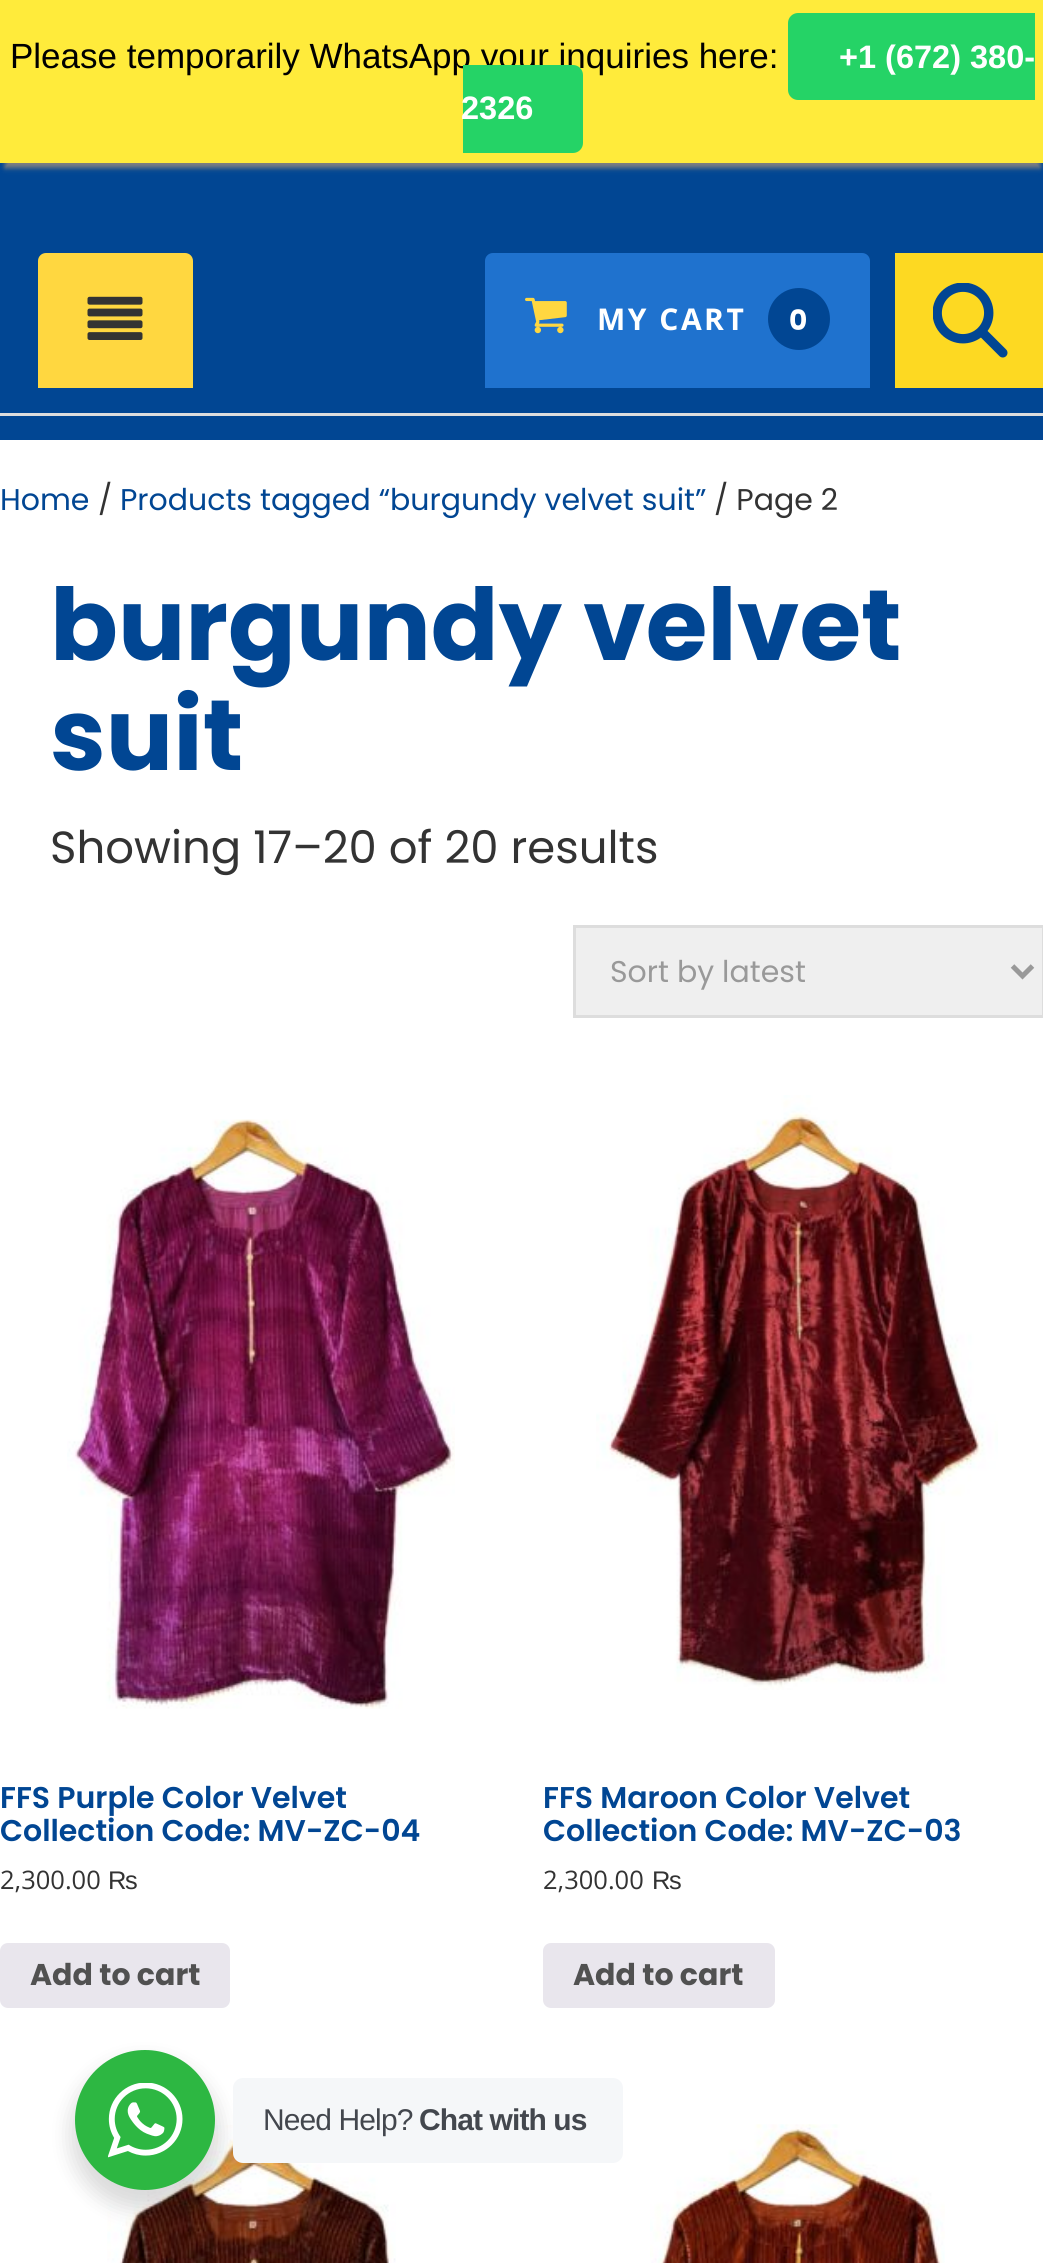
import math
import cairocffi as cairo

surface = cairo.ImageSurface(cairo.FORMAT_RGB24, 1043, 2263)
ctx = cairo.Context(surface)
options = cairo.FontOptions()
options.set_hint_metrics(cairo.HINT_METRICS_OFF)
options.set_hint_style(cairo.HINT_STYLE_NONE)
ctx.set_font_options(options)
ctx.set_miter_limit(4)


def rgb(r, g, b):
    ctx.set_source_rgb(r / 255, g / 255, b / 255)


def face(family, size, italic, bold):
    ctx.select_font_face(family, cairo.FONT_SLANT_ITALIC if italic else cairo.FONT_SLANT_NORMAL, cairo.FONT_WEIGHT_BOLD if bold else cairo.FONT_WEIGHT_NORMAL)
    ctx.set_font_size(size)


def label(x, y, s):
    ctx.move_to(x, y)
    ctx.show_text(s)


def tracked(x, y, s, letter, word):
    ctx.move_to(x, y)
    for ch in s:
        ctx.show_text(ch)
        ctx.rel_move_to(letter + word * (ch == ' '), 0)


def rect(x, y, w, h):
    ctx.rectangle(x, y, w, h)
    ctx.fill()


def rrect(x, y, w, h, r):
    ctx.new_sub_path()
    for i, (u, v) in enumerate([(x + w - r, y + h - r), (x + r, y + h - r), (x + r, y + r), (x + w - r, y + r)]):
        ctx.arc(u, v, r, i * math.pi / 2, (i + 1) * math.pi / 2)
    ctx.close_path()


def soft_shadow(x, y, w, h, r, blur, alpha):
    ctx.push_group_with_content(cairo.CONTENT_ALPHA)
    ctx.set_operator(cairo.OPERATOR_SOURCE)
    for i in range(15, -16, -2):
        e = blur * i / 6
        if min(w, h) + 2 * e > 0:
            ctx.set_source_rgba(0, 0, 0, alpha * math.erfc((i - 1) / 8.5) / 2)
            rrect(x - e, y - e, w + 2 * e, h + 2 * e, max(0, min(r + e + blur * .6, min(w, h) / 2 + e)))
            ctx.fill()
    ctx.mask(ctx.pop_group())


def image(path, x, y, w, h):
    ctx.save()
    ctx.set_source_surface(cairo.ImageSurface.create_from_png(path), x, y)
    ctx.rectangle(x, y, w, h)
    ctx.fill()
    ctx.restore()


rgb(255, 255, 255)
ctx.paint()
rgb(1, 70, 147)
rect(0, 163, 1043, 277)
rgb(128, 128, 128)
soft_shadow(5, 15, 1035, 153, 0, 2.5, 1)
rgb(255, 235, 59)
rect(0, 0, 1043, 163)
face('Liberation Sans', 35, 0, 0)
rgb(0, 0, 0)
label(10, 68, 'Please temporarily WhatsApp your inquiries here:')
rgb(37, 211, 102)
ctx.new_path()
ctx.move_to(798, 13)
ctx.line_to(1035, 13)
ctx.line_to(1035, 100)
ctx.line_to(798, 100)
ctx.curve_to(792.5, 100, 788, 95.5, 788, 90)
ctx.line_to(788, 23)
ctx.curve_to(788, 17.5, 792.5, 13, 798, 13)
ctx.close_path()
ctx.fill()
face('Liberation Sans', 32.5, 0, 1)
rgb(255, 255, 255)
label(839, 68, '+1 (672) 380-')
rgb(37, 211, 102)
ctx.new_path()
ctx.move_to(463, 65)
ctx.line_to(573, 65)
ctx.curve_to(578.5, 65, 583, 69.5, 583, 75)
ctx.line_to(583, 143)
ctx.curve_to(583, 148.5, 578.5, 153, 573, 153)
ctx.line_to(463, 153)
ctx.close_path()
ctx.fill()
rgb(255, 255, 255)
label(461, 119, '2326')
rgb(221, 221, 221)
rect(0, 413, 1043, 3)
rgb(255, 215, 64)
ctx.new_path()
ctx.move_to(46, 253)
ctx.line_to(185, 253)
ctx.curve_to(189.5, 253, 193, 256.5, 193, 261)
ctx.line_to(193, 388)
ctx.line_to(38, 388)
ctx.line_to(38, 261)
ctx.curve_to(38, 256.5, 41.5, 253, 46, 253)
ctx.close_path()
ctx.fill()
image('image0.png', 87, 296, 56, 44)
rgb(31, 114, 206)
ctx.new_path()
ctx.move_to(493, 253)
ctx.line_to(862, 253)
ctx.curve_to(866.5, 253, 870, 256.5, 870, 261)
ctx.line_to(870, 388)
ctx.line_to(485, 388)
ctx.line_to(485, 261)
ctx.curve_to(485, 256.5, 488.5, 253, 493, 253)
ctx.close_path()
ctx.fill()
image('image1.png', 525, 297, 42, 37)
face('Open Sans', 30, 0, 1)
rgb(255, 255, 255)
tracked(597, 330, 'MY CART', 2.5, 0)
rgb(1, 70, 147)
ctx.new_path()
ctx.arc(799, 319, 31, 0, 2 * math.pi)
ctx.fill()
face('Poppins', 28, 0, 1)
rgb(255, 255, 255)
tracked(789, 330, '0', 2.5, 0)
rgb(253, 217, 34)
rect(895, 253, 148, 135)
image('image2.png', 933, 283, 75, 75)
face('Poppins', 30, 0, 0)
rgb(1, 70, 147)
label(0, 510, 'Home')
rgb(51, 51, 51)
label(98, 510, '/')
rgb(1, 70, 147)
label(120, 510, 'Products tagged “burgundy velvet suit”')
rgb(51, 51, 51)
label(714, 510, '/ Page 2')
face('Poppins', 100, 0, 1)
rgb(1, 70, 147)
label(50, 660, 'burgundy velvet')
label(50, 770, 'suit')
face('Poppins', 45, 0, 0)
rgb(51, 51, 51)
label(50, 863, 'Showing 17–20 of 20 results')
rgb(239, 239, 239)
ctx.rectangle(574.5, 926.5, 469, 90)
ctx.fill_preserve()
rgb(221, 221, 221)
ctx.set_line_width(3)
ctx.stroke()
ctx.new_path()
ctx.move_to(1012.5, 966)
ctx.line_to(1022.5, 976)
ctx.line_to(1032.5, 966)
rgb(153, 153, 153)
ctx.set_line_width(5)
ctx.stroke()
face('Poppins', 30, 0, 0)
label(610, 982, 'Sort by latest')
image('image3.png', 67, 1119, 388, 590)
face('Poppins SemiBold', 30, 0, 0)
rgb(1, 70, 147)
label(0, 1808, 'FFS Purple Color Velvet')
label(0, 1841, 'Collection Code: MV-ZC-04')
face('Open Sans', 25.5, 0, 0)
rgb(51, 51, 51)
label(0, 1889, '2,300.00')
face('Liberation Sans', 25.5, 0, 0)
label(108, 1889, '₨')
rgb(233, 230, 237)
rrect(0, 1943, 230, 65, 8)
ctx.fill()
face('Poppins', 30, 0, 1)
rgb(81, 81, 81)
label(30, 1985, 'Add to cart')
image('image4.png', 596, 1095, 402, 595)
face('Poppins SemiBold', 30, 0, 0)
rgb(1, 70, 147)
label(543, 1808, 'FFS Maroon Color Velvet')
label(543, 1841, 'Collection Code: MV-ZC-03')
face('Open Sans', 25.5, 0, 0)
rgb(51, 51, 51)
label(543, 1889, '2,300.00')
face('Liberation Sans', 25.5, 0, 0)
label(652, 1889, '₨')
rgb(233, 230, 237)
rrect(543, 1943, 232, 65, 8)
ctx.fill()
face('Poppins', 30, 0, 1)
rgb(81, 81, 81)
label(573, 1985, 'Add to cart')
image('image5.png', 107, 2125, 289, 138)
image('image6.png', 650, 2124, 295, 139)
rgb(0, 0, 0)
soft_shadow(70, 2060, 150, 150, 75, 10, 0.14)
rgb(45, 183, 66)
ctx.arc(145, 2120, 70, 0, 2 * math.pi)
ctx.fill()
image('image7.png', 108, 2083, 75, 75)
rgb(245, 247, 249)
rrect(233, 2078, 390, 85, 10)
ctx.fill()
face('Liberation Sans', 30, 0, 0)
rgb(67, 71, 78)
tracked(263, 2130, 'Need Help?', -0.9, 0)
face('Liberation Sans', 30, 0, 1)
tracked(419, 2130, 'Chat with us', -0.9, 0)
surface.write_to_png('render.png')
